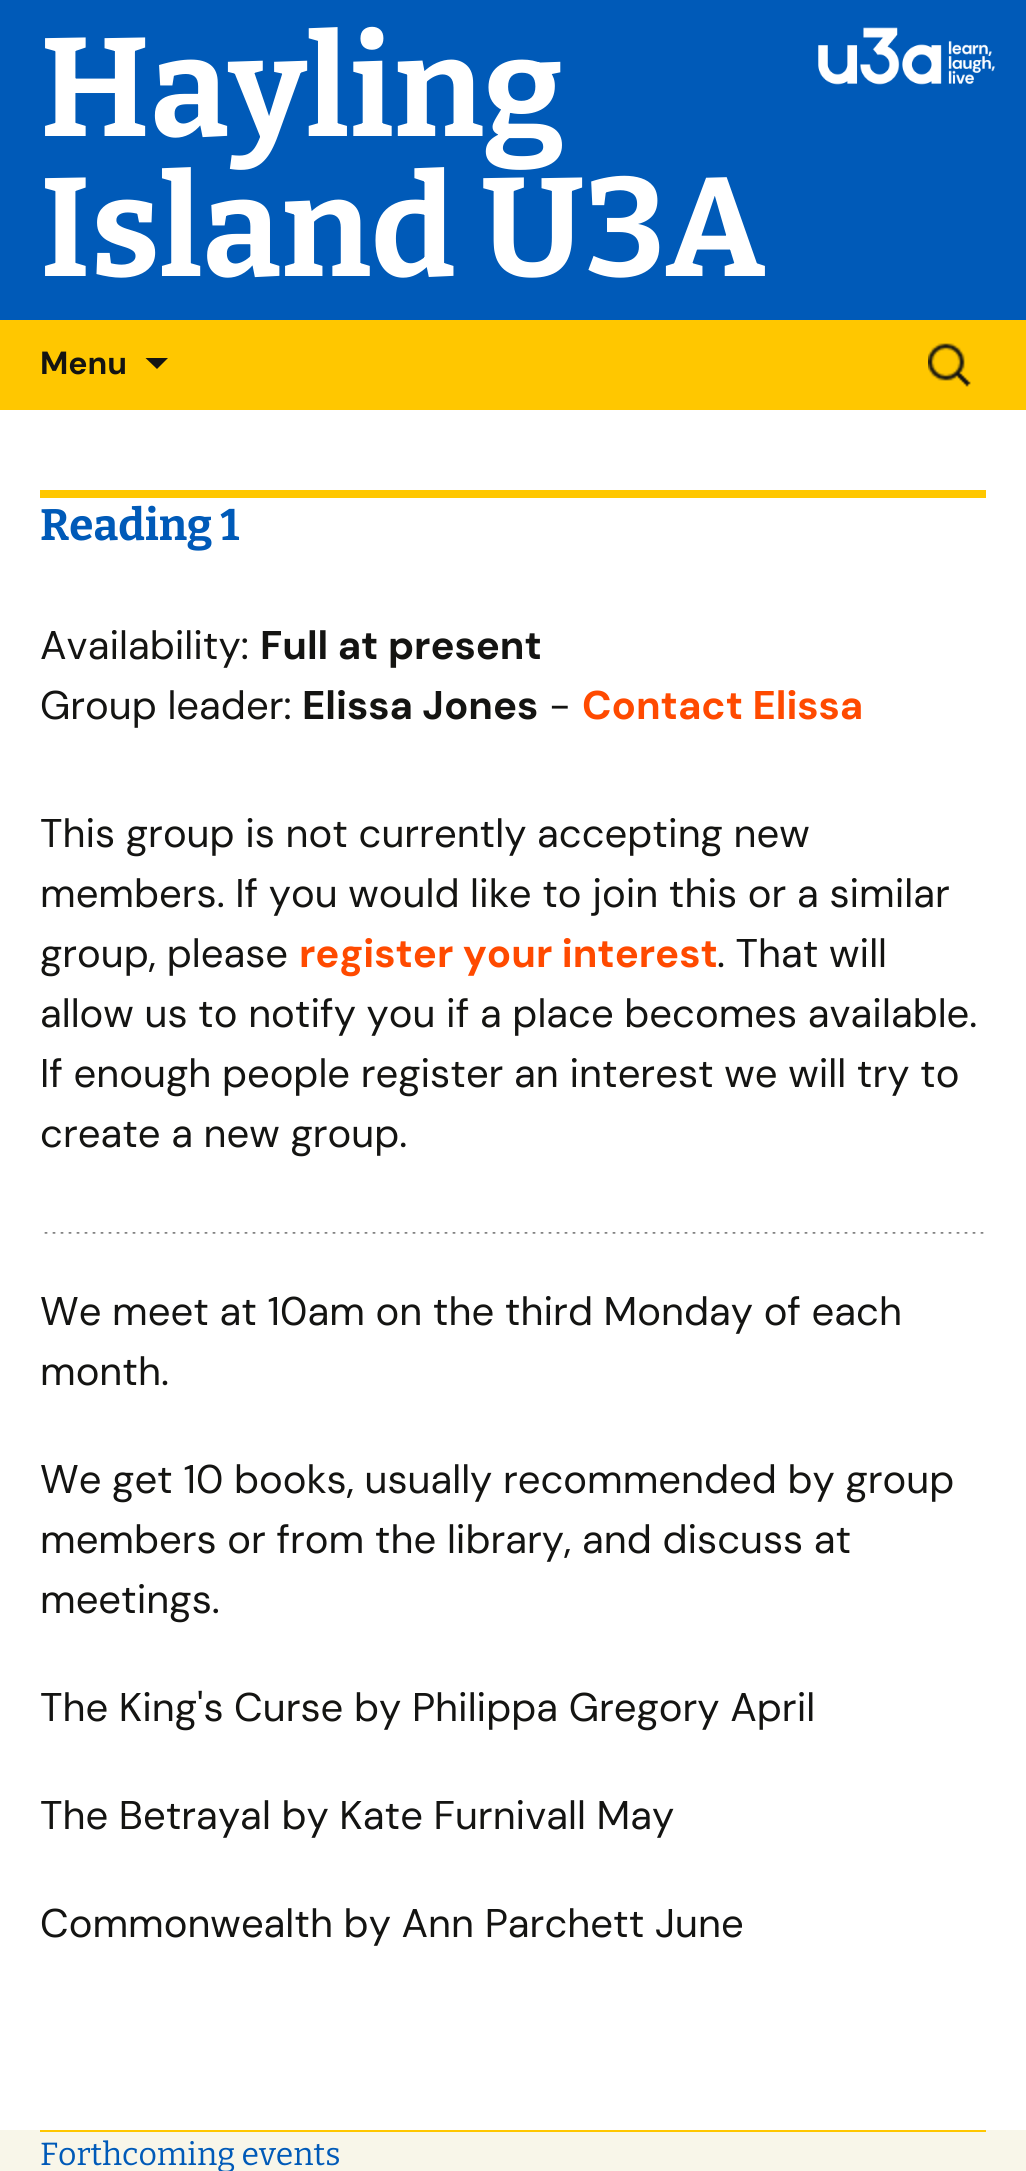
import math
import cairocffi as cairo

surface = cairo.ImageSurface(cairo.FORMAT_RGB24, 1026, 2171)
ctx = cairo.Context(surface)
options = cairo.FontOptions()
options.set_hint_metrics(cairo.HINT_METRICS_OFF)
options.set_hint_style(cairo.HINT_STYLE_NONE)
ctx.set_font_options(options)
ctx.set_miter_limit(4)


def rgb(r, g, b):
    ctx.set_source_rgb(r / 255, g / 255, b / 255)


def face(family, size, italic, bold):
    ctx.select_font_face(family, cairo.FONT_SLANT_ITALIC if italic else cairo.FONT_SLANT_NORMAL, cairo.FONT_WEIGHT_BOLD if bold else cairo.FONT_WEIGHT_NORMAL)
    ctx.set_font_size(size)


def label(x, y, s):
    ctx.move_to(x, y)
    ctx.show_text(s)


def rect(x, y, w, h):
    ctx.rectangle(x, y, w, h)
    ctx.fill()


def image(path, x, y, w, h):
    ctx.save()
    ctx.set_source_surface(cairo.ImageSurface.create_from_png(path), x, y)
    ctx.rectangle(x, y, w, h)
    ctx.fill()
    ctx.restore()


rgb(255, 255, 255)
ctx.paint()
rgb(0, 90, 184)
rect(0, 0, 1026, 320)
face('Bitter Thin', 140, 0, 0)
rgb(255, 255, 255)
label(40, 136, 'Hayling')
label(40, 276, 'Island U3A')
image('image0.png', 818, 27, 178, 58)
rgb(255, 199, 0)
rect(0, 320, 1026, 90)
face('DM Sans', 32, 0, 1)
rgb(20, 20, 18)
label(40, 374, 'Menu')
ctx.new_path()
ctx.move_to(145.5, 358)
ctx.line_to(157, 369)
ctx.line_to(168, 358)
ctx.close_path()
ctx.fill()
image('image1.png', 928, 343, 43, 44)
rgb(255, 199, 0)
rect(40, 490, 946, 8)
face('Bitter Thin', 44, 0, 0)
rgb(0, 90, 184)
label(40, 540, 'Reading 1')
face('DM Sans', 40, 0, 0)
rgb(20, 20, 18)
label(40, 659, 'Availability:')
face('DM Sans', 40, 0, 1)
label(260, 659, 'Full at present')
face('DM Sans', 40, 0, 0)
label(40, 719, 'Group leader:')
face('DM Sans', 40, 0, 1)
label(302, 719, 'Elissa Jones')
face('DM Sans', 40, 0, 0)
label(549, 719, '-')
face('DM Sans', 40, 0, 1)
rgb(255, 74, 0)
label(582, 719, 'Contact Elissa')
face('DM Sans', 40, 0, 0)
rgb(20, 20, 18)
label(40, 847, 'This group is not currently accepting new')
label(40, 907, 'members. If you would like to join this or a similar')
label(40, 967, 'group, please')
face('DM Sans', 40, 0, 1)
rgb(255, 74, 0)
label(299, 967, 'register your interest')
face('DM Sans', 40, 0, 0)
rgb(20, 20, 18)
label(717, 967, '. That will')
label(40, 1027, 'allow us to notify you if a place becomes available.')
label(40, 1087, 'If enough people register an interest we will try to')
label(40, 1147, 'create a new group.')
image('image2.png', 44, 1232, 940, 2)
label(40, 1325, 'We meet at 10am on the third Monday of each')
label(40, 1385, 'month.')
label(40, 1493, 'We get 10 books, usually recommended by group')
label(40, 1553, 'members or from the library, and discuss at')
label(40, 1613, 'meetings.')
label(40, 1721, 'The King\'s Curse by Philippa Gregory April')
label(40, 1829, 'The Betrayal by Kate Furnivall May')
label(40, 1937, 'Commonwealth by Ann Parchett June')
rgb(248, 246, 233)
rect(0, 2130, 1026, 41)
rgb(255, 199, 0)
rect(40, 2130, 946, 2)
face('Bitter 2 Thin', 32, 0, 0)
rgb(0, 90, 184)
label(40, 2165, 'Forthcoming events')
surface.write_to_png('render.png')
